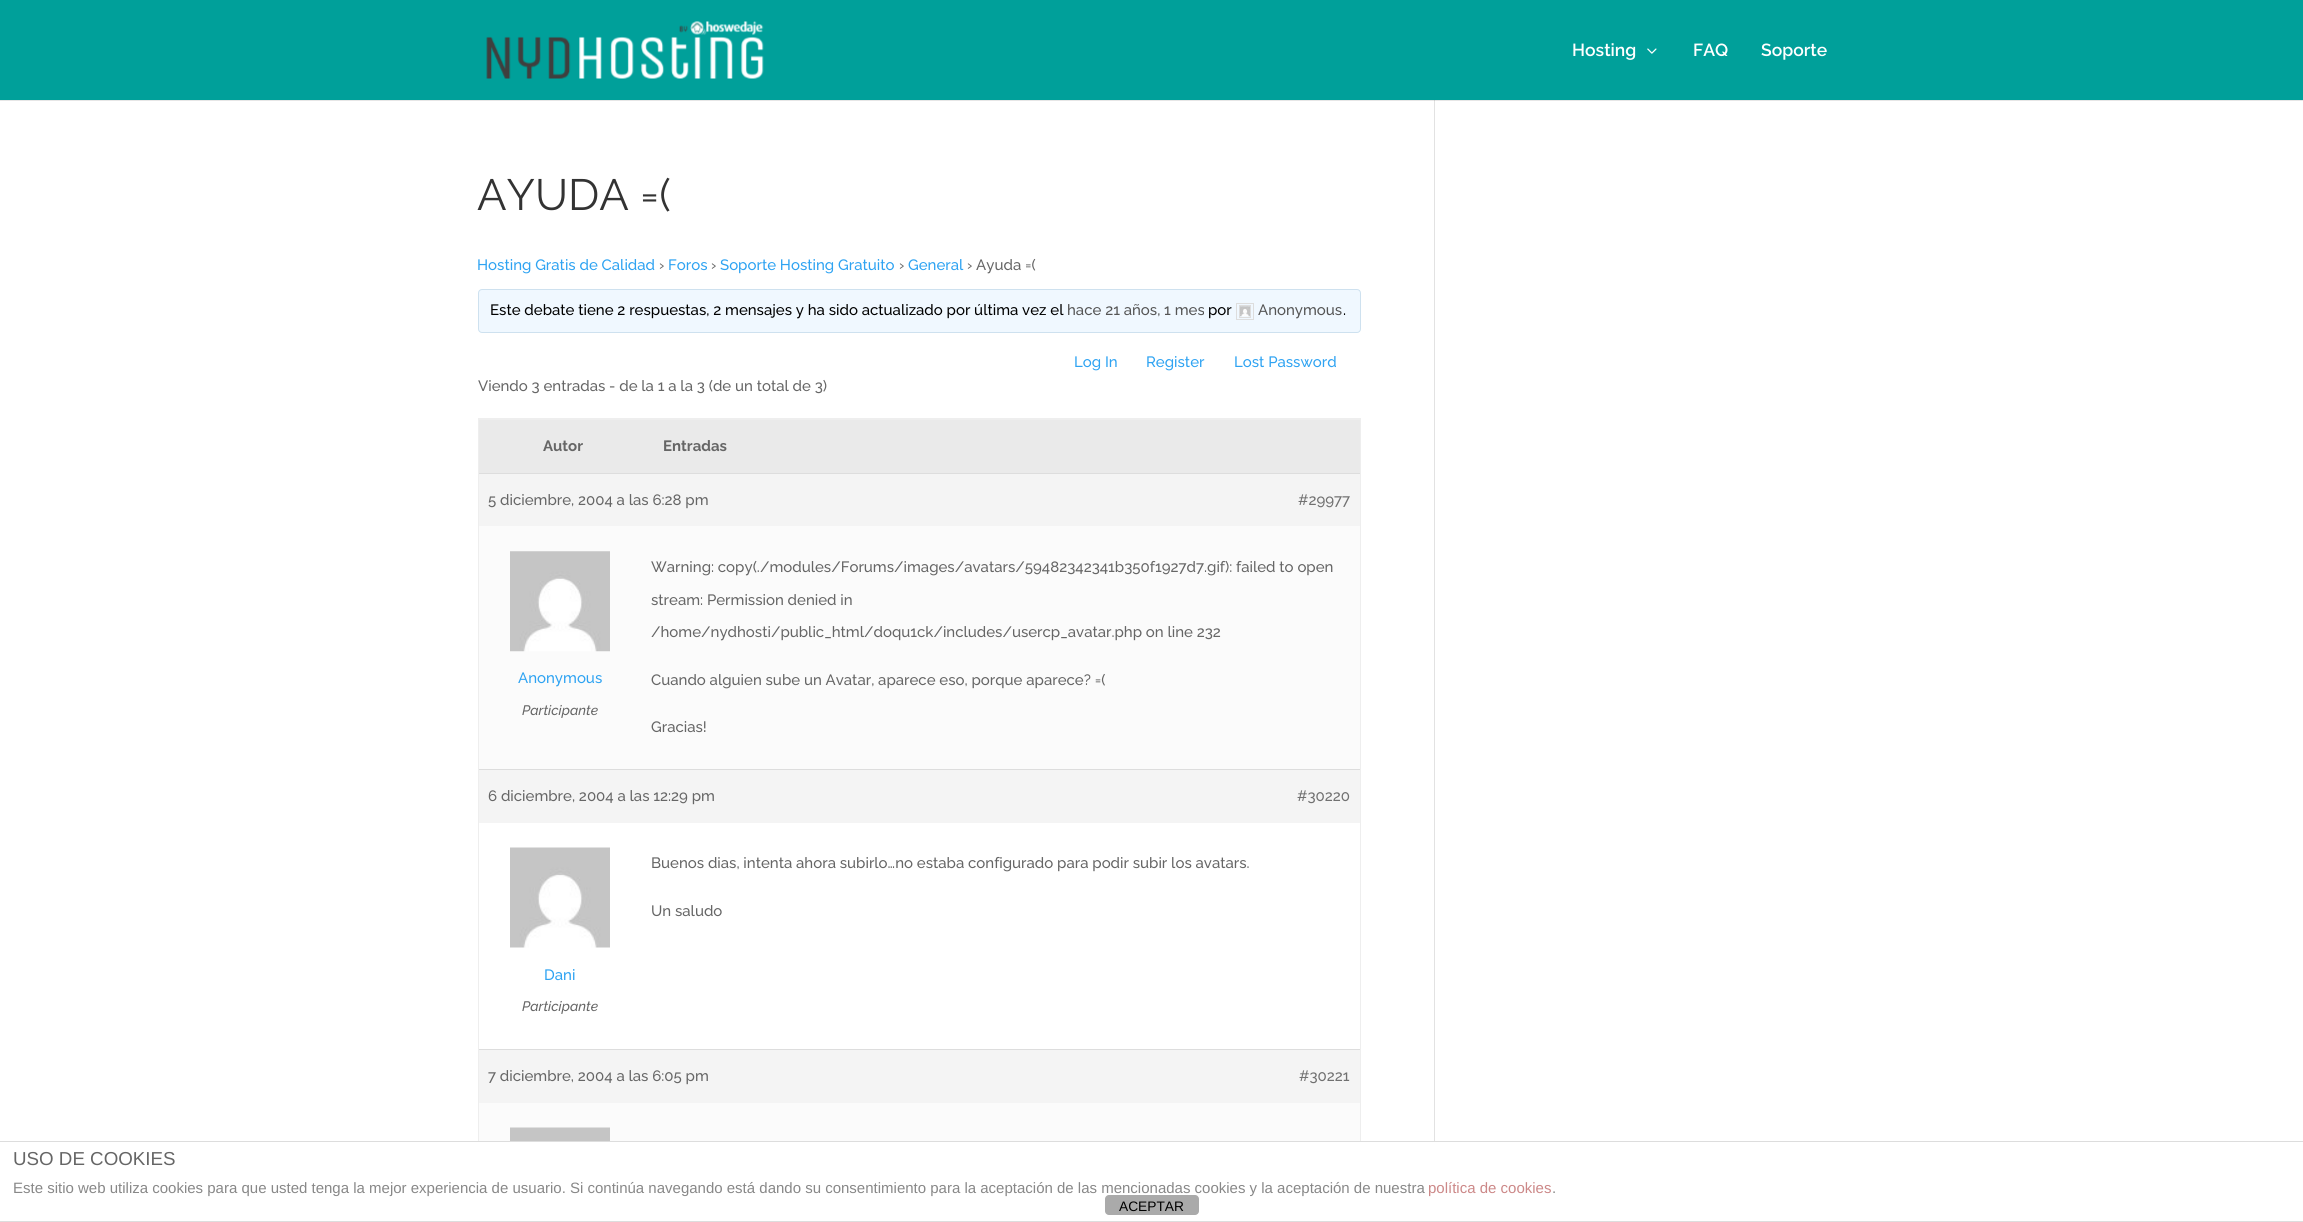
import math
import cairocffi as cairo

surface = cairo.ImageSurface(cairo.FORMAT_RGB24, 2303, 1222)
ctx = cairo.Context(surface)
options = cairo.FontOptions()
options.set_hint_metrics(cairo.HINT_METRICS_OFF)
options.set_hint_style(cairo.HINT_STYLE_NONE)
ctx.set_font_options(options)
ctx.set_miter_limit(4)


def rgb(r, g, b):
    ctx.set_source_rgb(r / 255, g / 255, b / 255)


def face(family, size, italic, bold):
    ctx.select_font_face(family, cairo.FONT_SLANT_ITALIC if italic else cairo.FONT_SLANT_NORMAL, cairo.FONT_WEIGHT_BOLD if bold else cairo.FONT_WEIGHT_NORMAL)
    ctx.set_font_size(size)


def label(x, y, s):
    ctx.move_to(x, y)
    ctx.show_text(s)


def rect(x, y, w, h):
    ctx.rectangle(x, y, w, h)
    ctx.fill()


def rrect(x, y, w, h, r):
    ctx.new_sub_path()
    for i, (u, v) in enumerate([(x + w - r, y + h - r), (x + r, y + h - r), (x + r, y + r), (x + w - r, y + r)]):
        ctx.arc(u, v, r, i * math.pi / 2, (i + 1) * math.pi / 2)
    ctx.close_path()


def image(path, x, y, w, h):
    ctx.save()
    ctx.set_source_surface(cairo.ImageSurface.create_from_png(path), x, y)
    ctx.rectangle(x, y, w, h)
    ctx.fill()
    ctx.restore()


rgb(255, 255, 255)
ctx.paint()
rgb(226, 226, 226)
rect(1434, 100, 1, 1041)
ctx.set_source_rgba(0, 0, 0, 0.1)
ctx.new_path()
ctx.move_to(0, 100)
ctx.line_to(0, 101)
ctx.line_to(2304, 101)
ctx.line_to(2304, 1)
ctx.line_to(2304, 100)
ctx.close_path()
ctx.fill()
rgb(0, 160, 154)
rect(0, 0, 2303, 100)
image('image0.png', 486, 21, 278, 58)
face('Raleway SemiBold', 17.5, 0, 0)
rgb(255, 255, 255)
label(1572, 56, 'Hosting')
image('image1.png', 1647, 48, 10, 6)
label(1693, 56, 'FAQ')
label(1761, 56, 'Soporte')
face('Raleway', 43.75, 0, 0)
rgb(51, 51, 51)
label(477, 210, 'AYUDA =(')
face('Raleway Medium', 15, 0, 0)
rgb(46, 163, 242)
label(477, 270, 'Hosting Gratis de Calidad')
rgb(102, 102, 102)
label(659, 270, '›')
rgb(46, 163, 242)
label(668, 270, 'Foros')
rgb(102, 102, 102)
label(711, 270, '›')
rgb(46, 163, 242)
label(720, 270, 'Soporte Hosting Gratuito')
rgb(102, 102, 102)
label(899, 270, '›')
rgb(46, 163, 242)
label(908, 270, 'General')
rgb(102, 102, 102)
label(967, 270, '› Ayuda =(')
rgb(240, 248, 255)
rrect(478.5, 289.5, 882, 43, 3.5)
ctx.fill_preserve()
rgb(206, 225, 239)
ctx.set_line_width(1)
ctx.stroke()
rgb(0, 0, 0)
label(490, 315, 'Este debate tiene 2 respuestas, 2 mensajes y ha sido actualizado por última vez el')
rgb(85, 85, 85)
label(1067, 315, 'hace 21 años, 1 mes')
rgb(0, 0, 0)
label(1208, 315, 'por')
ctx.rectangle(1236.5, 303.5, 17, 16)
rgb(221, 221, 221)
ctx.stroke()
ctx.rectangle(1239.5, 305.5, 11, 12)
ctx.stroke()
image('image2.png', 1240, 306, 10, 11)
rgb(85, 85, 85)
label(1258, 315, 'Anonymous')
rgb(0, 0, 0)
label(1343, 315, '.')
rgb(46, 163, 242)
label(1074, 367, 'Log In')
label(1146, 367, 'Register')
label(1234, 367, 'Lost Password')
rgb(102, 102, 102)
label(478, 391, 'Viendo 3 entradas - de la 1 a la 3 (de un total de 3)')
ctx.rectangle(478.5, 418.5, 882, 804)
rgb(238, 238, 238)
ctx.stroke()
rgb(234, 234, 234)
rect(479, 420, 881, 53)
rgb(238, 238, 238)
rect(479, 419, 881, 1)
face('Raleway', 15, 0, 1)
rgb(102, 102, 102)
label(543, 451, 'Autor')
label(663, 451, 'Entradas')
rgb(244, 244, 244)
rect(479, 474, 881, 52)
rgb(221, 221, 221)
rect(479, 473, 881, 1)
face('Raleway Medium', 15, 0, 0)
rgb(102, 102, 102)
label(488, 505, '5 diciembre, 2004 a las 6:28 pm')
rgb(112, 112, 112)
label(1298, 505, '#29977')
rgb(251, 251, 251)
rect(479, 526, 881, 243)
image('image3.png', 510, 551, 100, 101)
rgb(46, 163, 242)
label(518, 683, 'Anonymous')
face('Raleway Medium', 13.75, 1, 0)
rgb(102, 102, 102)
label(522, 715, 'Participante')
face('Raleway Medium', 15, 0, 0)
label(651, 572, 'Warning: copy(./modules/Forums/images/avatars/59482342341b350f1927d7.gif): failed to open')
label(651, 605, 'stream: Permission denied in')
label(651, 637, '/home/nydhosti/public_html/doqu1ck/includes/usercp_avatar.php on line 232')
label(651, 685, 'Cuando alguien sube un Avatar, aparece eso, porque aparece? =(')
label(651, 732, 'Gracias!')
rgb(244, 244, 244)
rect(479, 770, 881, 53)
rgb(221, 221, 221)
rect(479, 769, 881, 1)
rgb(102, 102, 102)
label(488, 801, '6 diciembre, 2004 a las 12:29 pm')
rgb(112, 112, 112)
label(1297, 801, '#30220')
rgb(102, 102, 102)
label(651, 868, 'Buenos dias, intenta ahora subirlo…no estaba configurado para podir subir los avatars.')
label(651, 916, 'Un saludo')
image('image4.png', 510, 847, 100, 101)
rgb(46, 163, 242)
label(544, 980, 'Dani')
face('Raleway Medium', 13.75, 1, 0)
rgb(102, 102, 102)
label(522, 1011, 'Participante')
rgb(244, 244, 244)
rect(479, 1050, 881, 53)
rgb(221, 221, 221)
rect(479, 1049, 881, 1)
face('Raleway Medium', 15, 0, 0)
rgb(102, 102, 102)
label(488, 1081, '7 diciembre, 2004 a las 6:05 pm')
rgb(112, 112, 112)
label(1299, 1081, '#30221')
rgb(251, 251, 251)
rect(479, 1103, 881, 38)
image('image5.png', 510, 1127, 100, 14)
rgb(255, 255, 255)
rect(478, 1142, 883, 79)
rgb(221, 221, 221)
rect(0, 1141, 2303, 1)
rect(0, 1221, 2303, 1)
face('Liberation Sans', 18.75, 0, 0)
rgb(102, 102, 102)
label(13, 1165, 'USO DE COOKIES')
rgb(170, 170, 170)
rrect(1105, 1195, 94, 20, 4)
ctx.fill()
face('Liberation Sans', 15, 0, 0)
rgb(136, 136, 136)
label(13, 1193, 'Este sitio web utiliza cookies para que usted tenga la mejor experiencia de usuario. Si continúa navegando está dando su consentimiento para la aceptación de las mencionadas cookies y la aceptación de nuestra')
rgb(204, 136, 136)
label(1428, 1193, 'política de cookies')
rgb(136, 136, 136)
label(1552, 1193, '.')
face('Liberation Sans', 13.75, 0, 0)
rgb(0, 0, 0)
label(1119, 1211, 'ACEPTAR')
surface.write_to_png('render.png')
